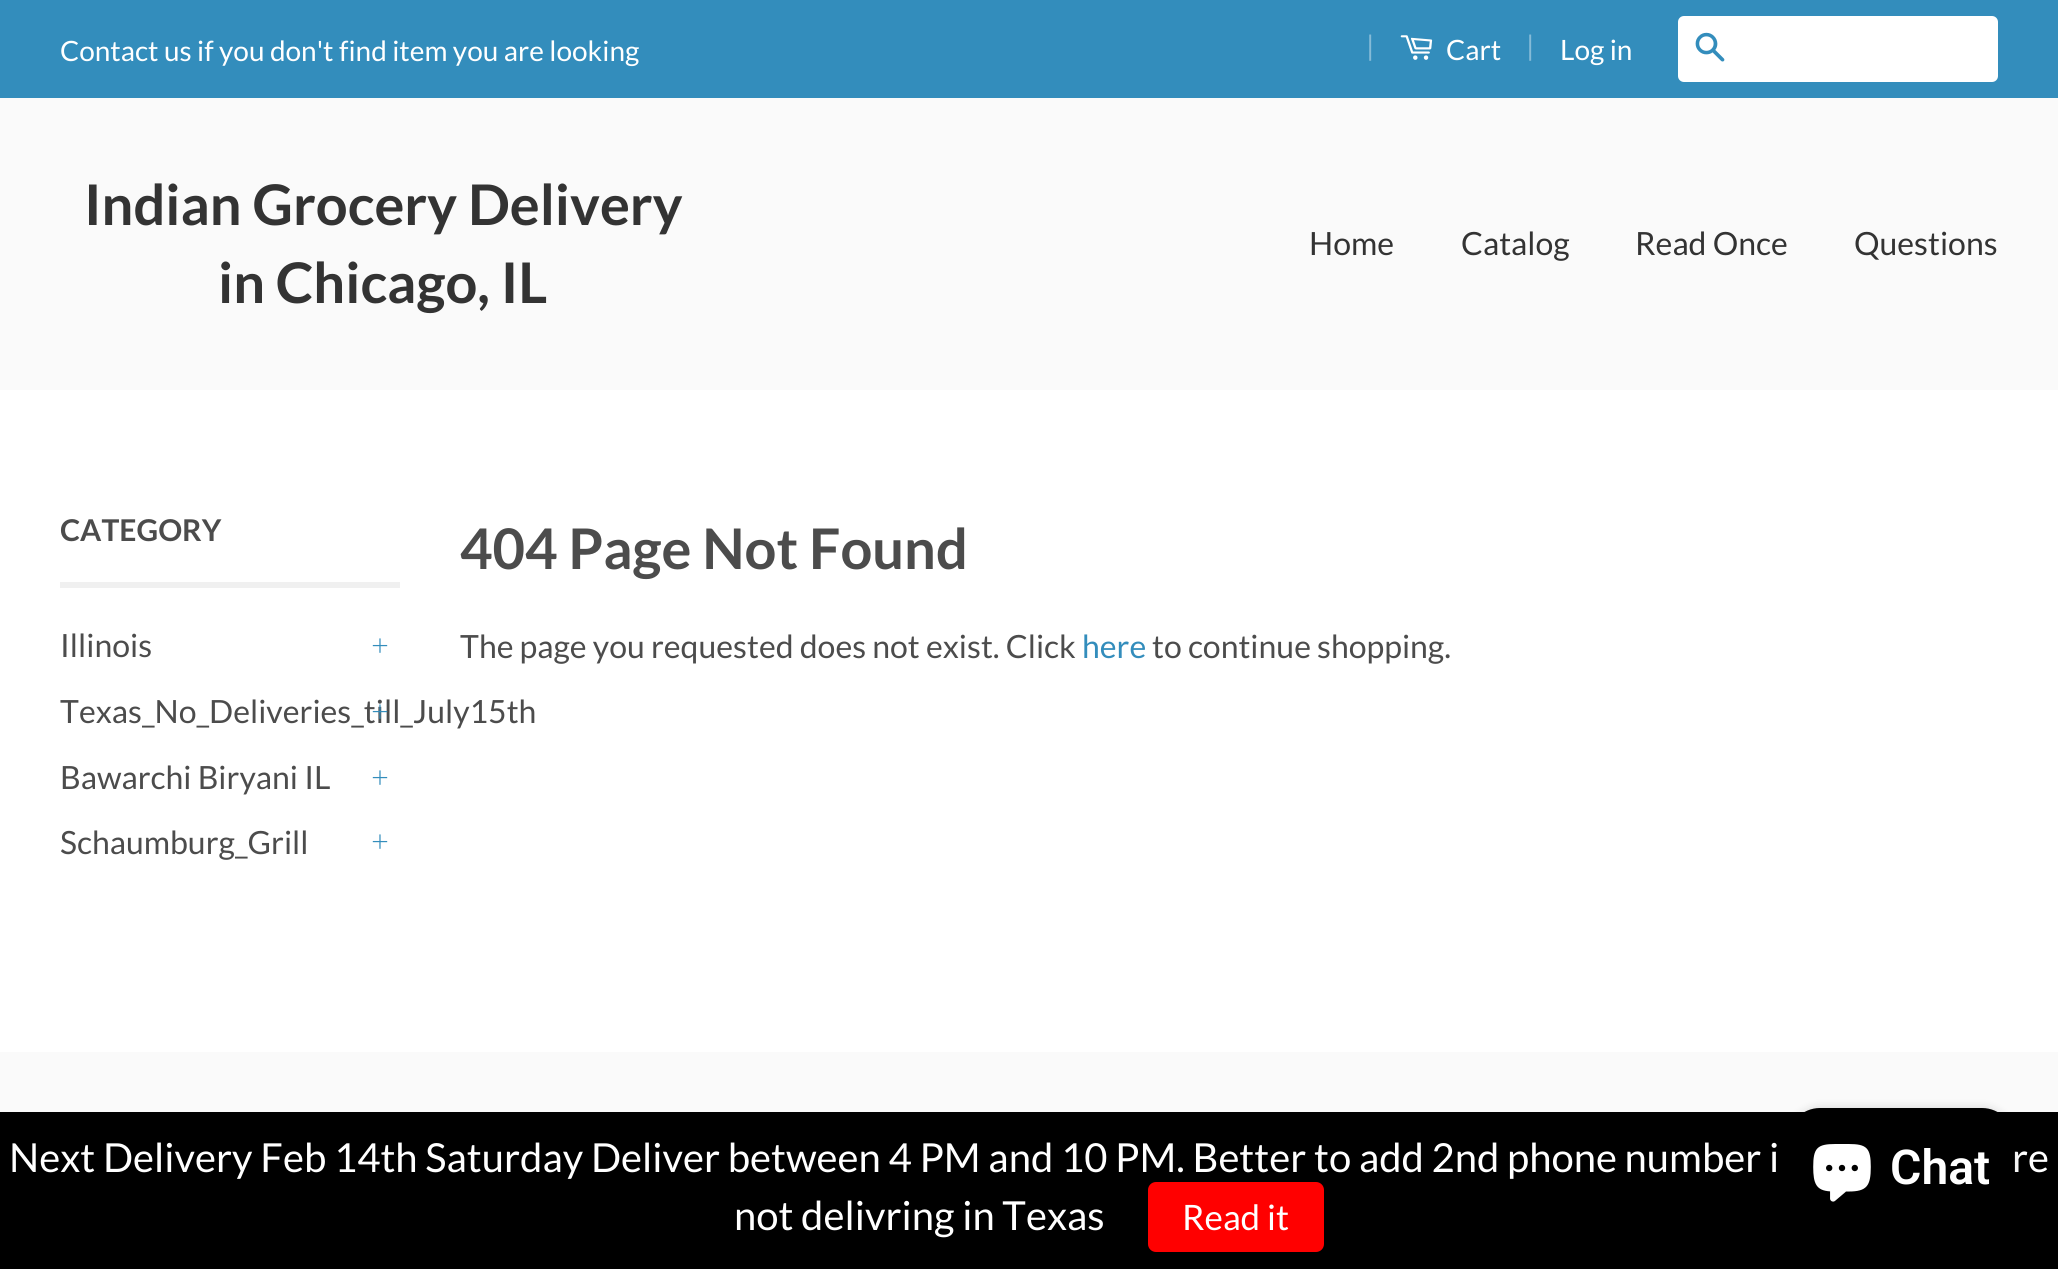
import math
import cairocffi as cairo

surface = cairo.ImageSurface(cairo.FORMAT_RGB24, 2058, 1269)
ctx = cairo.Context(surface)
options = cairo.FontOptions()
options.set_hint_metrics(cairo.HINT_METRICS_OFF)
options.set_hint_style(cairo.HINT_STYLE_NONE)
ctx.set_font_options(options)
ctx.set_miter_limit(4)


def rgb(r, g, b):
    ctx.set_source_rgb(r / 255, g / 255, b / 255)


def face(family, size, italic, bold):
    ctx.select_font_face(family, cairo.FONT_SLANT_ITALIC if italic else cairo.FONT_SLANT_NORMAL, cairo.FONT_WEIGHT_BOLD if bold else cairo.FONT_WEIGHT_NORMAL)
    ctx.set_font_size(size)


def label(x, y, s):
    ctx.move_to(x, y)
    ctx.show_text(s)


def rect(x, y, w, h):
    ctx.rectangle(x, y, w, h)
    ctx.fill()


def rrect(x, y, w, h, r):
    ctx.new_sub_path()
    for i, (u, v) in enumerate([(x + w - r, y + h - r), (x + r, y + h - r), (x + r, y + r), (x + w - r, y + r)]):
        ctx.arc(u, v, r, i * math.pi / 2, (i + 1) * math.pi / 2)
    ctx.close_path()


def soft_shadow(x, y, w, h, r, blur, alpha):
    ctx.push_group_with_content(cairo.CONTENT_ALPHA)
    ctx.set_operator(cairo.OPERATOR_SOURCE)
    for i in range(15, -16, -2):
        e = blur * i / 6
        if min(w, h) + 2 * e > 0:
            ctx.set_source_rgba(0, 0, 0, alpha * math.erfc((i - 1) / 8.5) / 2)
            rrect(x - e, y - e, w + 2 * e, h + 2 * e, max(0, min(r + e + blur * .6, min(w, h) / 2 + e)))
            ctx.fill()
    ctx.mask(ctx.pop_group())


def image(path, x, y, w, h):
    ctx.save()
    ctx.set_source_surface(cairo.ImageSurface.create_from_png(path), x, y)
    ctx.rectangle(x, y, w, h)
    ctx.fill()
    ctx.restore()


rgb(255, 255, 255)
ctx.paint()
rgb(51, 141, 188)
rect(0, 0, 2058, 98)
face('Lato', 28, 0, 0)
rgb(255, 255, 255)
label(60, 61, 'Contact us if you don\'t find item you are looking')
rgb(133, 187, 215)
label(1366, 56, '|')
image('image0.png', 1400, 35, 33, 25)
rgb(255, 255, 255)
label(1446, 60, 'Cart')
rgb(133, 187, 215)
label(1526, 56, '|')
rgb(255, 255, 255)
label(1560, 60, 'Log in')
rrect(1678, 16, 320, 66, 6)
ctx.fill()
image('image1.png', 1695, 32, 30, 30)
rgb(250, 250, 250)
rect(0, 98, 2058, 292)
face('Lato', 56, 0, 1)
rgb(51, 51, 51)
label(84, 225, 'Indian Grocery Delivery')
label(218, 303, 'in Chicago, IL')
face('Lato', 32, 0, 0)
label(1309, 255, 'Home')
label(1461, 255, 'Catalog')
label(1635, 255, 'Read Once')
label(1854, 255, 'Questions')
rgb(240, 240, 240)
rect(60, 582, 340, 6)
face('Lato', 30, 0, 1)
rgb(76, 76, 76)
label(60, 541, 'CATEGORY')
face('Lato', 32, 0, 0)
label(60, 657, 'Illinois')
image('image2.png', 372, 638, 16, 15)
label(60, 723, 'Texas_No_Deliveries_till_July15th')
image('image3.png', 372, 704, 16, 15)
label(60, 789, 'Bawarchi Biryani IL')
image('image2.png', 372, 770, 16, 15)
label(60, 854, 'Schaumburg_Grill')
image('image2.png', 372, 834, 16, 15)
face('Lato', 56, 0, 1)
label(460, 569, '404 Page Not Found')
face('Lato', 32, 0, 0)
label(460, 658, 'The page you requested does not exist. Click')
rgb(51, 141, 188)
label(1082, 658, 'here')
rgb(76, 76, 76)
label(1152, 658, 'to continue shopping.')
rgb(250, 250, 250)
rect(0, 1052, 2058, 60)
rgb(0, 0, 0)
rect(0, 1112, 2058, 157)
face('Lato', 40, 0, 0)
rgb(255, 255, 255)
label(9, 1172, 'Next Delivery Feb 14th Saturday Deliver between 4 PM and 10 PM. Better to add 2nd phone number i')
label(2012, 1172, 're')
label(734, 1230, 'not delivring in Texas')
rgb(255, 0, 0)
rrect(1148, 1182, 176, 70, 8)
ctx.fill()
face('Lato', 35, 0, 0)
rgb(255, 255, 255)
label(1182, 1230, 'Read it')
rgb(0, 0, 0)
soft_shadow(1788, 1108, 226, 120, 32, 5, 0.15)
rgb(0, 0, 0)
rrect(1788, 1108, 226, 120, 32)
ctx.fill()
image('image4.png', 1813, 1144, 58, 58)
face('Roboto SemiBold', 48, 0, 0)
rgb(255, 255, 255)
label(1890, 1184, 'Chat')
surface.write_to_png('render.png')
